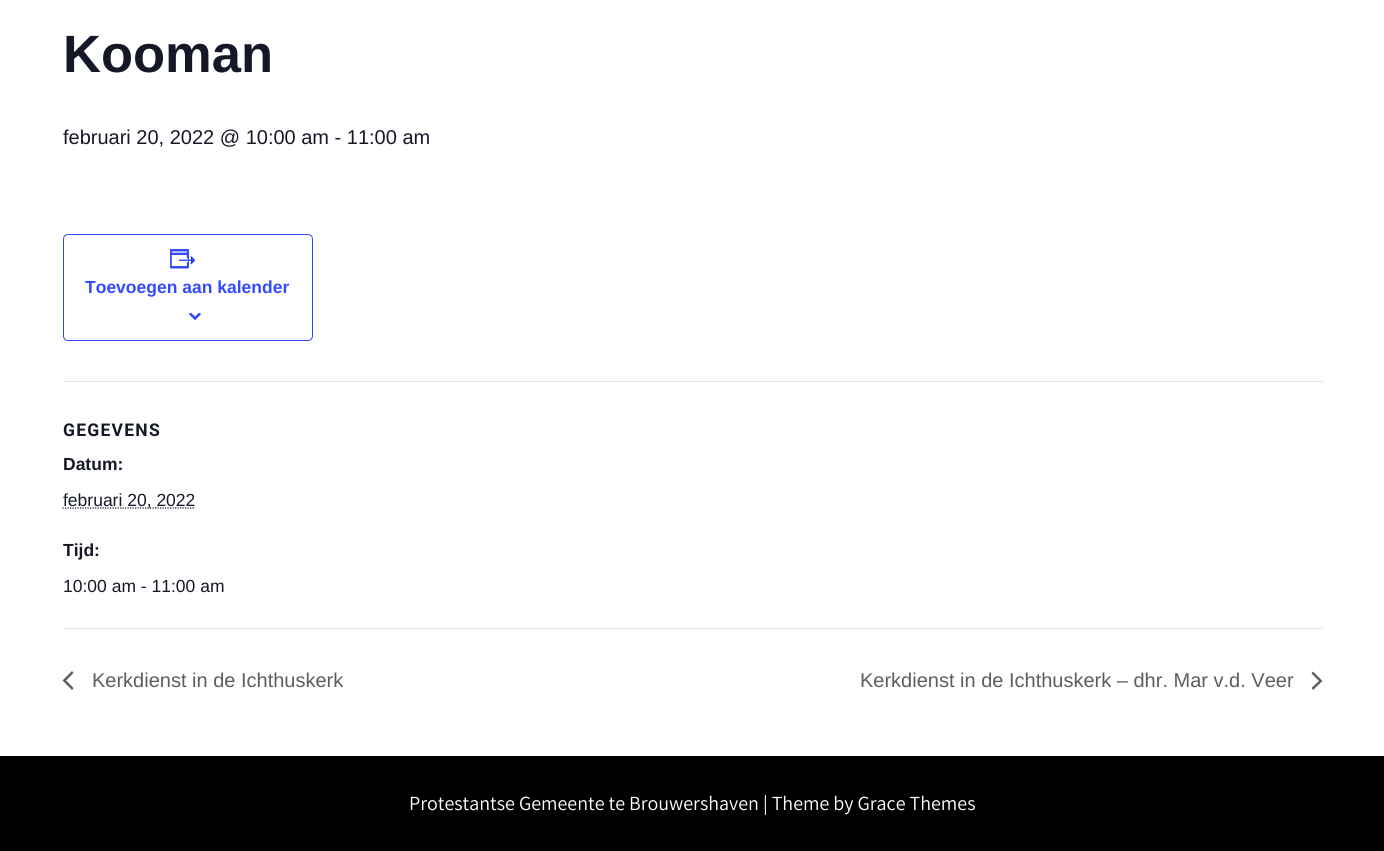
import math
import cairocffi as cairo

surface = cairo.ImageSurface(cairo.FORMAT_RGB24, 1384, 851)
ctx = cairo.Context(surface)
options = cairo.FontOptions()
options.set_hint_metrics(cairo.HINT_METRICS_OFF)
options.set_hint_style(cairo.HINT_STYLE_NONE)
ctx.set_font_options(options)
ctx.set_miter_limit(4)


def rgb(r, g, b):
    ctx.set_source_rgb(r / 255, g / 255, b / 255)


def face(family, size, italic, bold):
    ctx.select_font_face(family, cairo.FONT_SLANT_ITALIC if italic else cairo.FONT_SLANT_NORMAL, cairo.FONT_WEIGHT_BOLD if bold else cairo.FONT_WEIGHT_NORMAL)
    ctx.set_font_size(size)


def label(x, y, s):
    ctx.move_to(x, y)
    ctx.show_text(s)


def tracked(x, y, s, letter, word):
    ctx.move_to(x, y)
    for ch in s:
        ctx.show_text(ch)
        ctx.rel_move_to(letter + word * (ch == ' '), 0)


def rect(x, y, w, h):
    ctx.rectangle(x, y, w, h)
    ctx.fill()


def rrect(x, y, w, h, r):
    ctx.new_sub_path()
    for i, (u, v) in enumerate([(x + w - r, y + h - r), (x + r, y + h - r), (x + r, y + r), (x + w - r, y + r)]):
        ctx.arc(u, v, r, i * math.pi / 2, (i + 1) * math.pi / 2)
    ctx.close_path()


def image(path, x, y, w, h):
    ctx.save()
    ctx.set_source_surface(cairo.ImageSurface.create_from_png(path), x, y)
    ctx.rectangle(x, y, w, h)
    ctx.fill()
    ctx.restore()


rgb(255, 255, 255)
ctx.paint()
face('Liberation Sans', 52.5, 0, 1)
rgb(20, 24, 39)
label(63, 72, 'Kooman')
face('Liberation Sans', 20, 0, 0)
label(63, 144, 'februari 20, 2022 @ 10:00 am - 11:00 am')
rrect(63.5, 234.5, 249, 106, 4.5)
rgb(51, 74, 255)
ctx.set_line_width(1)
ctx.stroke()
image('image0.png', 170, 249, 26, 20)
face('Liberation Sans', 17.5, 0, 1)
label(85, 293, 'Toevoegen aan kalender')
image('image1.png', 189, 313, 12, 7)
rgb(228, 228, 228)
rect(63, 381, 1260, 1)
face('Roboto', 17.5, 0, 1)
rgb(20, 24, 39)
tracked(63, 436, 'GEGEVENS', 1.25, 0)
face('Liberation Sans', 17.5, 0, 1)
label(63, 470, 'Datum:')
ctx.new_path()
ctx.move_to(62.5, 508)
ctx.line_to(195, 508)
ctx.set_line_width(1.2)
ctx.set_dash([1.25, 1.25])
ctx.stroke()
face('Liberation Sans', 17.5, 0, 0)
label(63, 506, 'februari 20, 2022')
face('Liberation Sans', 17.5, 0, 1)
label(63, 556, 'Tijd:')
face('Liberation Sans', 17.5, 0, 0)
label(63, 592, '10:00 am - 11:00 am')
rgb(228, 228, 228)
rect(63, 628, 1260, 1)
rgb(93, 93, 93)
ctx.new_path()
ctx.move_to(73.5, 688)
ctx.line_to(72, 690)
ctx.line_to(62.5, 680.5)
ctx.line_to(72, 671)
ctx.line_to(73.5, 673)
ctx.line_to(66, 680.5)
ctx.close_path()
ctx.fill()
face('Liberation Sans', 20, 0, 0)
label(92, 687, 'Kerkdienst in de Ichthuskerk')
label(860, 687, 'Kerkdienst in de Ichthuskerk – dhr. Mar v.d. Veer')
ctx.new_path()
ctx.move_to(1311.5, 673.5)
ctx.line_to(1313, 671.5)
ctx.line_to(1322.5, 681)
ctx.line_to(1313, 690)
ctx.line_to(1311.5, 688)
ctx.line_to(1319, 681)
ctx.close_path()
ctx.fill()
rgb(0, 0, 0)
rect(0, 756, 1384, 95)
face('Assistant', 20, 0, 0)
rgb(255, 255, 255)
label(409, 810, 'Protestantse Gemeente te Brouwershaven | Theme by Grace Themes')
surface.write_to_png('render.png')
